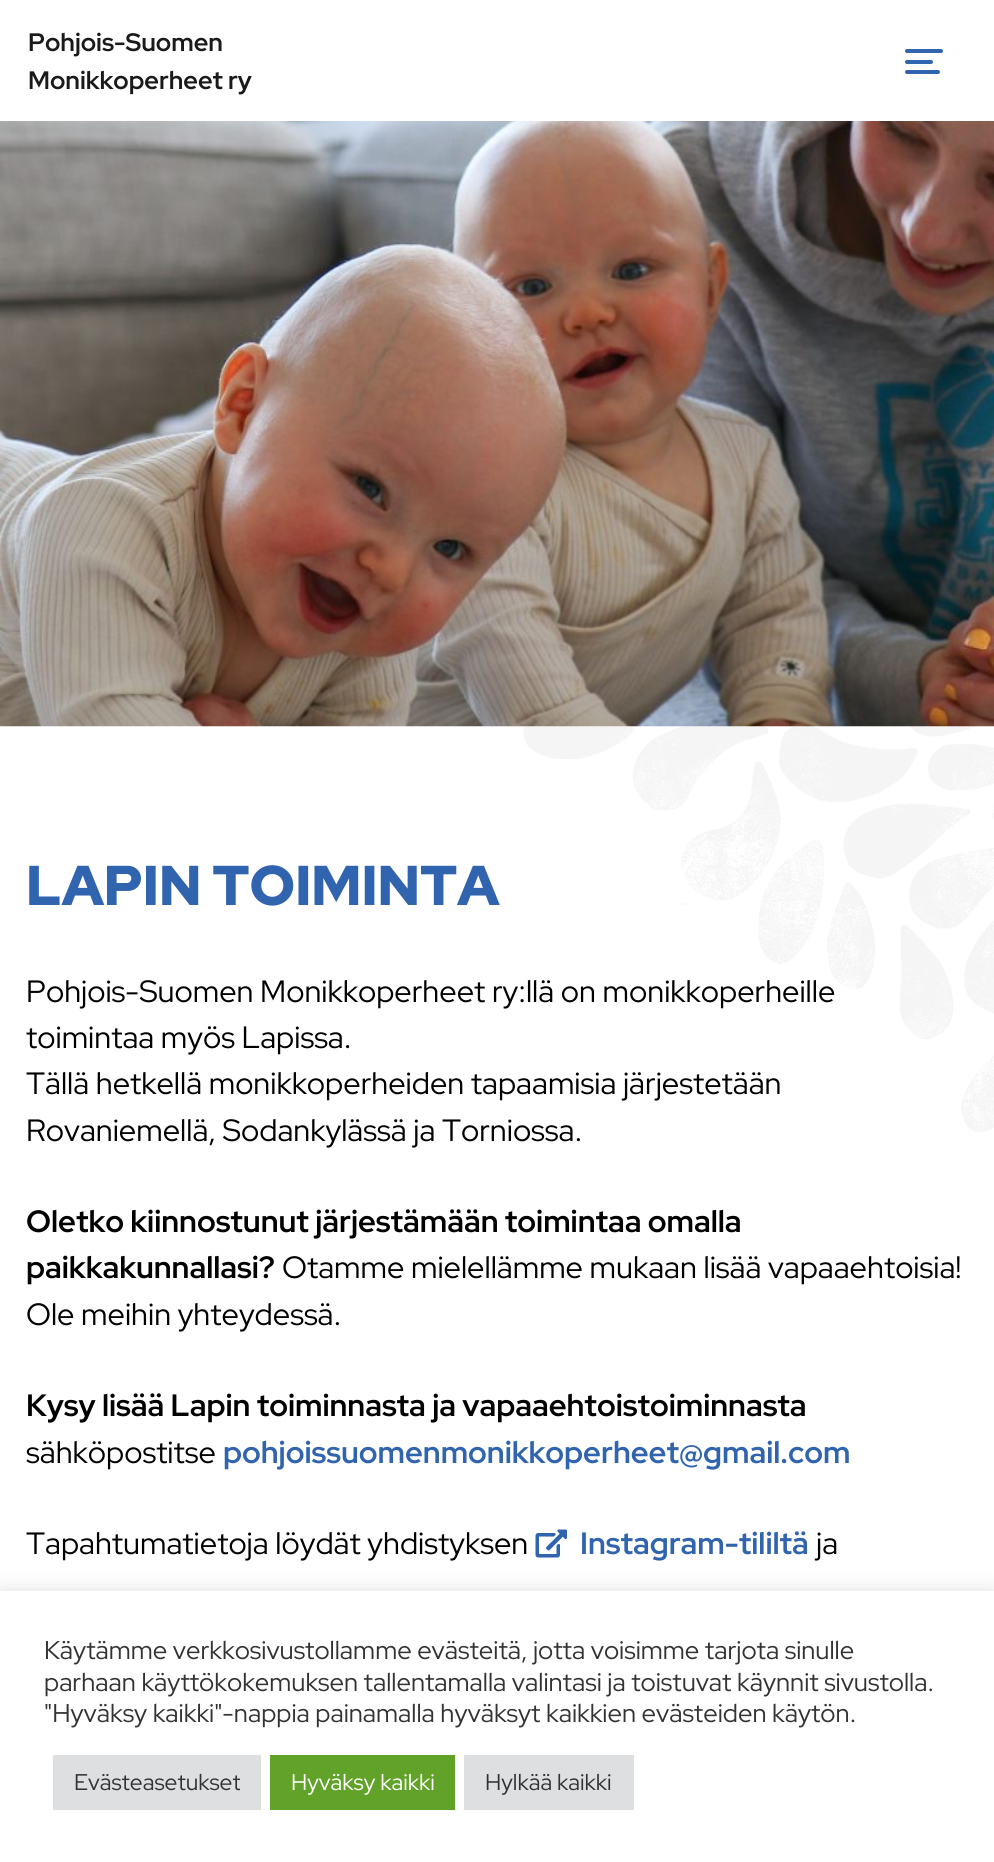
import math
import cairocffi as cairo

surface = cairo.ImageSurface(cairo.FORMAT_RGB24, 994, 1862)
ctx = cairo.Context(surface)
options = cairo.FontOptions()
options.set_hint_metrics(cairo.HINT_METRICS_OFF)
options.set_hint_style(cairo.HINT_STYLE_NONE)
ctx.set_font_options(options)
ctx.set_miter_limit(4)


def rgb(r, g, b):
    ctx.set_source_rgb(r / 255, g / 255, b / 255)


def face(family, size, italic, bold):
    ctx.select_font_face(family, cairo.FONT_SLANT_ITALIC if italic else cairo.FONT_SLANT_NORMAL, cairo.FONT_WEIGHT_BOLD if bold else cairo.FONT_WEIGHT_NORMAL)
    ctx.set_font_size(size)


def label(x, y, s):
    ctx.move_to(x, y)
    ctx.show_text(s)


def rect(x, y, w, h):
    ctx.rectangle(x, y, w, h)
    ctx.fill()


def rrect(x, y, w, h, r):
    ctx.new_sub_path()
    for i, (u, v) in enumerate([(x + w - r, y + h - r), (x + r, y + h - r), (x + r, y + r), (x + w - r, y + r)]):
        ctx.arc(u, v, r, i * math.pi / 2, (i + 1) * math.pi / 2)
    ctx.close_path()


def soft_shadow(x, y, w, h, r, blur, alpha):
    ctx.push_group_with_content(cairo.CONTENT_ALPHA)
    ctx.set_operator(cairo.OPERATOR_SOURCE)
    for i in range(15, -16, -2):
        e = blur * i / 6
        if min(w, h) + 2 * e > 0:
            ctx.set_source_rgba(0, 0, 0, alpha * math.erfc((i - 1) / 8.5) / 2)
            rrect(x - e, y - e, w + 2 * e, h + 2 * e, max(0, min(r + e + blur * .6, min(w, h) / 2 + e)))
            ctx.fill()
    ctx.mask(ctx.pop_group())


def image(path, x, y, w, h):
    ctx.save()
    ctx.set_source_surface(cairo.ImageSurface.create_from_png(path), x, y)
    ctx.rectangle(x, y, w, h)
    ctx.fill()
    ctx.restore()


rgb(255, 255, 255)
ctx.paint()
face('Red Hat Display', 25.25, 0, 1)
rgb(26, 26, 26)
label(28, 51, 'Pohjois-Suomen')
label(28, 89, 'Monikkoperheet ry')
rgb(49, 100, 174)
rrect(905, 49, 38, 4, 2)
ctx.fill()
rrect(905, 60, 28, 4, 2)
ctx.fill()
rrect(905, 70, 35, 4, 2)
ctx.fill()
image('image1.png', 523, 726, 471, 406)
image('image0.png', 0, 121, 994, 606)
face('Red Hat Display Black', 56, 0, 0)
label(26, 905, 'LAPIN TOIMINTA')
face('Red Hat Display', 30.8, 0, 0)
rgb(0, 0, 0)
label(26, 1002, 'Pohjois-Suomen Monikkoperheet ry:llä on monikkoperheille')
label(26, 1048, 'toimintaa myös Lapissa.')
label(26, 1094, 'Tällä hetkellä monikkoperheiden tapaamisia järjestetään')
label(26, 1141, 'Rovaniemellä, Sodankylässä ja Torniossa.')
face('Red Hat Display', 30.8, 0, 1)
label(26, 1232, 'Oletko kiinnostunut järjestämään toimintaa omalla')
label(26, 1278, 'paikkakunnallasi?')
face('Red Hat Display', 30.8, 0, 0)
label(282, 1278, 'Otamme mielellämme mukaan lisää vapaaehtoisia!')
label(26, 1325, 'Ole meihin yhteydessä.')
face('Red Hat Display', 30.8, 0, 1)
label(26, 1416, 'Kysy lisää Lapin toiminnasta ja vapaaehtoistoiminnasta')
face('Red Hat Display', 30.8, 0, 0)
label(26, 1463, 'sähköpostitse')
face('Red Hat Display', 30.8, 0, 1)
rgb(49, 100, 174)
label(223, 1463, 'pohjoissuomenmonikkoperheet@gmail.com')
face('Red Hat Display', 30.8, 0, 0)
rgb(0, 0, 0)
label(26, 1554, 'Tapahtumatietoja löydät yhdistyksen')
image('image2.png', 535, 1529, 32, 29)
face('Red Hat Display', 30.8, 0, 1)
rgb(49, 100, 174)
label(580, 1554, 'Instagram-tililtä')
face('Red Hat Display', 30.8, 0, 0)
rgb(0, 0, 0)
label(816, 1554, 'ja')
rgb(172, 171, 171)
soft_shadow(0, 1589, 994, 271, 0, 9, 0.3)
rgb(255, 255, 255)
rect(0, 1591, 994, 271)
face('Red Hat Display', 25.65, 0, 0)
rgb(51, 51, 51)
label(44, 1659, 'Käytämme verkkosivustollamme evästeitä, jotta voisimme tarjota sinulle')
label(44, 1691, 'parhaan käyttökokemuksen tallentamalla valintasi ja toistuvat käynnit sivustolla.')
label(44, 1722, '"Hyväksy kaikki"-nappia painamalla hyväksyt kaikkien evästeiden käytön.')
rgb(222, 223, 224)
rect(53, 1755, 208, 55)
face('Red Hat Display', 22.75, 0, 0)
rgb(51, 51, 51)
label(74, 1790, 'Evästeasetukset')
rgb(97, 162, 41)
rect(270, 1755, 185, 55)
rgb(255, 255, 255)
label(291, 1790, 'Hyväksy kaikki')
rgb(222, 223, 224)
rect(464, 1755, 170, 55)
rgb(51, 51, 51)
label(485, 1790, 'Hylkää kaikki')
surface.write_to_png('render.png')
